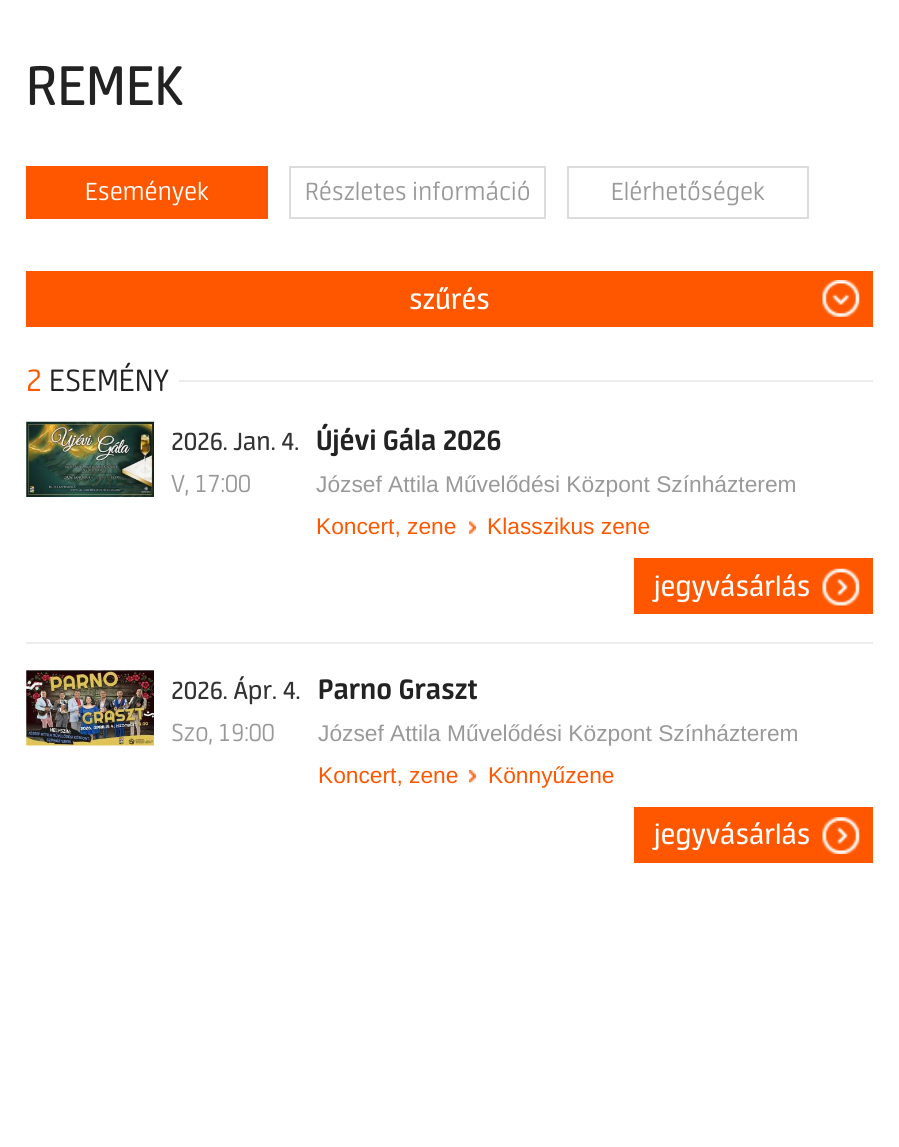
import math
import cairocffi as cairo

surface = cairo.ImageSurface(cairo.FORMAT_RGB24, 899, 1147)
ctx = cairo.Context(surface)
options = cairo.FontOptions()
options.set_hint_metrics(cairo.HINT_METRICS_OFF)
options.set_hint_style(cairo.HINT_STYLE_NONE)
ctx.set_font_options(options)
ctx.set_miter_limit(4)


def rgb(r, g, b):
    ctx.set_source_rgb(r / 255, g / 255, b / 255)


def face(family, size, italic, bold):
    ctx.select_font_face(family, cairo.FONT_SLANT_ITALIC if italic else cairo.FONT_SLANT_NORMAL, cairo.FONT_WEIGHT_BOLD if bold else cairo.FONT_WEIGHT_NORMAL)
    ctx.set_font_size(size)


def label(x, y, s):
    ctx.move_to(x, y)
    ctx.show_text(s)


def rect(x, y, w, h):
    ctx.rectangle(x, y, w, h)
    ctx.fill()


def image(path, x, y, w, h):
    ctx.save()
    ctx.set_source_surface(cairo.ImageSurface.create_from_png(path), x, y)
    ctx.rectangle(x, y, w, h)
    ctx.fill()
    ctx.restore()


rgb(255, 255, 255)
ctx.paint()
face('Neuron', 63, 0, 0)
rgb(34, 34, 34)
label(26, 105, 'REMEK')
rgb(255, 87, 0)
rect(26, 166, 242, 53)
face('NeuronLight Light', 28, 0, 0)
rgb(255, 255, 255)
label(85, 200, 'Események')
ctx.rectangle(290, 167, 255, 51)
rgb(220, 220, 220)
ctx.stroke()
rgb(153, 153, 153)
label(305, 200, 'Részletes információ')
ctx.rectangle(568, 167, 240, 51)
rgb(220, 220, 220)
ctx.stroke()
rgb(153, 153, 153)
label(611, 200, 'Elérhetőségek')
rgb(255, 87, 0)
rect(26, 271, 847, 56)
face('Neuron', 31.5, 0, 0)
rgb(255, 255, 255)
label(409, 309, 'szűrés')
image('image0.png', 822, 280, 38, 37)
face('NeuronLight Light', 35, 0, 0)
rgb(255, 87, 0)
label(26, 391, '2')
rgb(34, 34, 34)
label(49, 391, 'ESEMÉNY')
rgb(236, 236, 236)
rect(179, 380, 694, 2)
rect(26, 642, 847, 2)
image('image1.png', 26, 421, 128, 76)
face('Neuron', 28, 0, 0)
rgb(51, 51, 51)
label(171, 450, '2026. Jan. 4.')
face('NeuronLight Light', 28, 0, 0)
rgb(153, 153, 153)
label(171, 492, 'V, 17:00')
face('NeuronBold', 31.5, 0, 1)
rgb(34, 34, 34)
label(316, 450, 'Újévi Gála 2026')
face('Liberation Sans', 22.75, 0, 0)
rgb(153, 153, 153)
label(316, 492, 'József Attila Művelődési Központ Színházterem')
rgb(255, 87, 0)
label(316, 534, 'Koncert, zene')
image('image2.png', 469, 521, 7, 13)
label(487, 534, 'Klasszikus zene')
rect(634, 558, 239, 56)
face('Neuron', 31.5, 0, 0)
rgb(255, 255, 255)
label(654, 596, 'jegyvásárlás')
image('image3.png', 822, 568, 38, 38)
image('image4.png', 26, 670, 128, 76)
face('Neuron', 28, 0, 0)
rgb(51, 51, 51)
label(171, 699, '2026. Ápr. 4.')
face('NeuronLight Light', 28, 0, 0)
rgb(153, 153, 153)
label(171, 741, 'Szo, 19:00')
face('NeuronBold', 31.5, 0, 1)
rgb(34, 34, 34)
label(318, 699, 'Parno Graszt')
face('Liberation Sans', 22.75, 0, 0)
rgb(153, 153, 153)
label(318, 741, 'József Attila Művelődési Központ Színházterem')
rgb(255, 87, 0)
label(318, 783, 'Koncert, zene')
image('image5.png', 469, 770, 7, 13)
label(488, 783, 'Könnyűzene')
rect(634, 807, 239, 56)
face('Neuron', 31.5, 0, 0)
rgb(255, 255, 255)
label(654, 844, 'jegyvásárlás')
image('image6.png', 822, 817, 38, 37)
surface.write_to_png('render.png')
